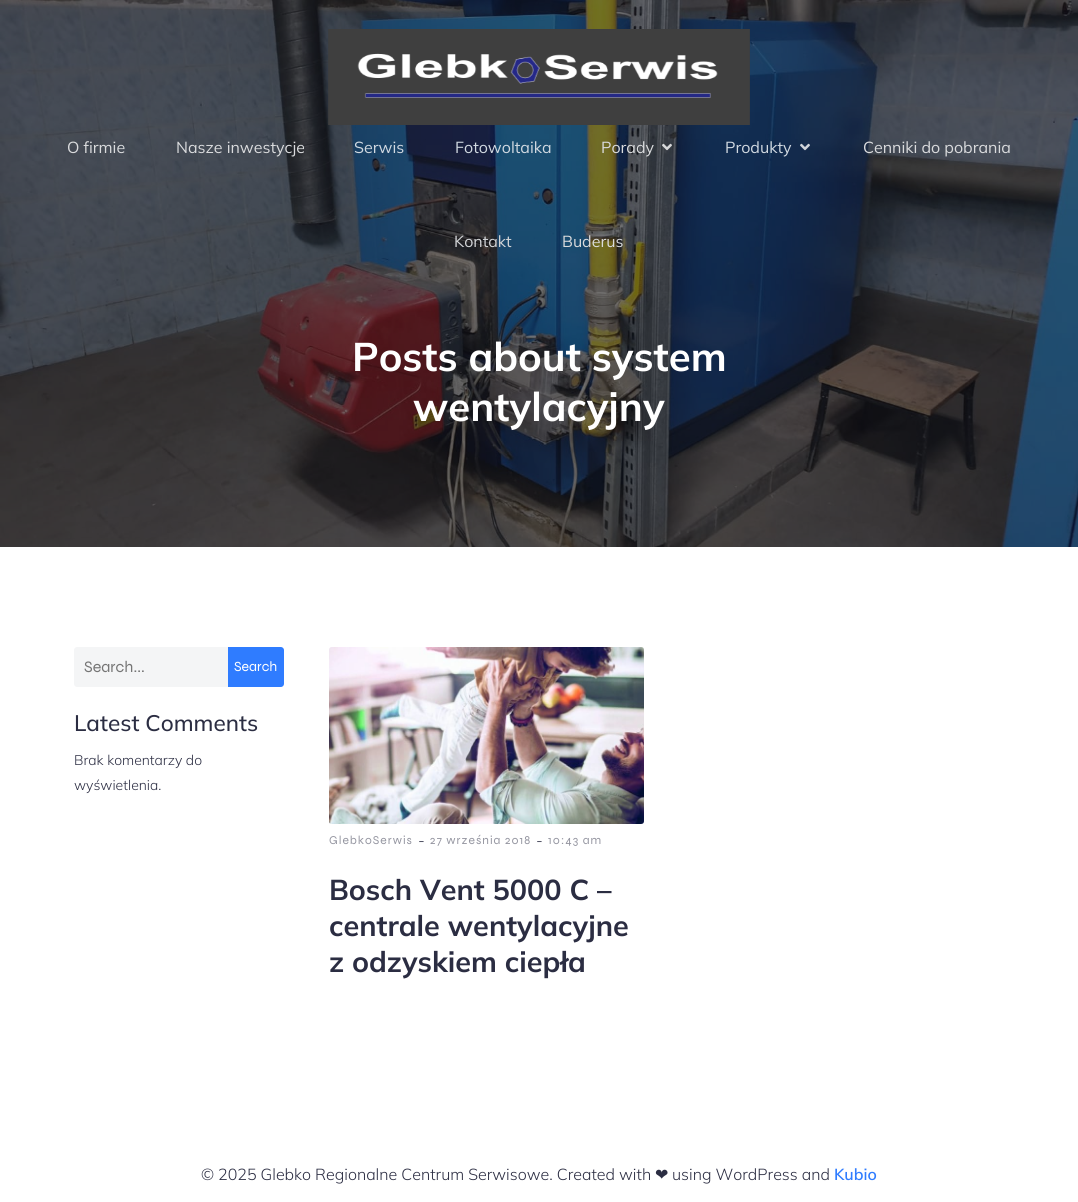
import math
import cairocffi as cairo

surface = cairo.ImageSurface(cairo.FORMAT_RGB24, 1078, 1202)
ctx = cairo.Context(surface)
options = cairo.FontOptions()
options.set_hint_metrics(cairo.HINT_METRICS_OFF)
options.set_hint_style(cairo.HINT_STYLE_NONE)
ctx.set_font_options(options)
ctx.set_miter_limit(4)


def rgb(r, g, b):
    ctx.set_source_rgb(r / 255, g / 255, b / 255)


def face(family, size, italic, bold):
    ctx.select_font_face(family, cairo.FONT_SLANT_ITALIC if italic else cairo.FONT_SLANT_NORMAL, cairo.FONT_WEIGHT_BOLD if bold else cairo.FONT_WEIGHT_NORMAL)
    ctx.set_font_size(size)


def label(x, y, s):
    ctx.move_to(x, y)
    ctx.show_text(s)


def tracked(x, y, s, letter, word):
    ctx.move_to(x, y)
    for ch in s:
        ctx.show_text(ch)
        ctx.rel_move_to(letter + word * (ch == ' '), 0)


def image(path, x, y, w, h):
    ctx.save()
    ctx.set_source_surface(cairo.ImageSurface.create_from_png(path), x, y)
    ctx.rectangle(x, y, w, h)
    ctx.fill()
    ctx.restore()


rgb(255, 255, 255)
ctx.paint()
image('image3.png', 0, 0, 1078, 547)
image('image0.png', 328, 29, 422, 96)
face('Mulish', 16, 0, 0)
rgb(218, 219, 221)
label(67, 153, 'O firmie')
label(176, 153, 'Nasze inwestycje')
rgb(209, 217, 225)
label(354, 153, 'Serwis')
label(455, 153, 'Fotowoltaika')
rgb(218, 219, 221)
label(601, 153, 'Porady')
image('image1.png', 662, 143, 10, 8)
rgb(209, 217, 225)
label(725, 153, 'Produkty')
image('image2.png', 800, 143, 10, 8)
rgb(218, 219, 221)
label(863, 153, 'Cenniki do pobrania')
rgb(211, 213, 216)
label(454, 247, 'Kontakt')
rgb(218, 219, 221)
label(562, 247, 'Buderus')
face('Mulish', 40, 0, 1)
rgb(255, 255, 255)
label(352, 371, 'Posts about system')
label(413, 421, 'wentylacyjny')
rgb(244, 245, 246)
ctx.new_path()
ctx.move_to(77, 647)
ctx.line_to(228, 647)
ctx.line_to(228, 687)
ctx.line_to(77, 687)
ctx.curve_to(75.5, 687, 74, 685.5, 74, 684)
ctx.line_to(74, 650)
ctx.curve_to(74, 648.5, 75.5, 647, 77, 647)
ctx.close_path()
ctx.fill()
face('Syne', 16, 0, 0)
rgb(117, 117, 117)
label(84, 672, 'Search...')
rgb(47, 124, 255)
ctx.new_path()
ctx.move_to(228, 647)
ctx.line_to(281, 647)
ctx.curve_to(282.5, 647, 284, 648.5, 284, 650)
ctx.line_to(284, 684)
ctx.curve_to(284, 685.5, 282.5, 687, 281, 687)
ctx.line_to(228, 687)
ctx.close_path()
ctx.fill()
face('Syne', 14, 0, 0)
rgb(255, 255, 255)
label(234, 671, 'Search')
face('Mulish Medium', 22.5, 0, 0)
rgb(43, 45, 66)
label(74, 731, 'Latest Comments')
face('Mulish Light', 14, 0, 0)
label(74, 765, 'Brak komentarzy do')
label(74, 790, 'wyświetlenia.')
image('image4.png', 329, 647, 315, 177)
face('Syne', 12, 0, 0)
rgb(149, 150, 161)
tracked(329, 844, 'GlebkoSerwis', 1, 0)
face('Mulish Light', 16, 0, 0)
rgb(43, 45, 66)
label(418, 846, '-')
face('Syne', 12, 0, 0)
rgb(149, 150, 161)
tracked(430, 844, '27 września 2018', 1, 0)
face('Mulish Light', 16, 0, 0)
rgb(43, 45, 66)
label(536, 846, '-')
face('Syne', 12, 0, 0)
rgb(149, 150, 161)
tracked(548, 844, '10:43 am', 1, 0)
face('Mulish', 28.75, 0, 1)
rgb(43, 45, 66)
label(329, 900, 'Bosch Vent 5000 C –')
label(329, 936, 'centrale wentylacyjne')
label(329, 972, 'z odzyskiem ciepła')
face('Mulish Light', 16, 0, 0)
label(201, 1180, '© 2025 Glebko Regionalne Centrum Serwisowe. Created with')
face('DejaVu Sans', 16, 0, 0)
label(655, 1180, '❤')
face('Mulish Light', 16, 0, 0)
label(672, 1180, 'using WordPress and')
face('Mulish SemiBold', 16, 0, 0)
rgb(47, 124, 255)
label(834, 1180, 'Kubio')
surface.write_to_png('render.png')
